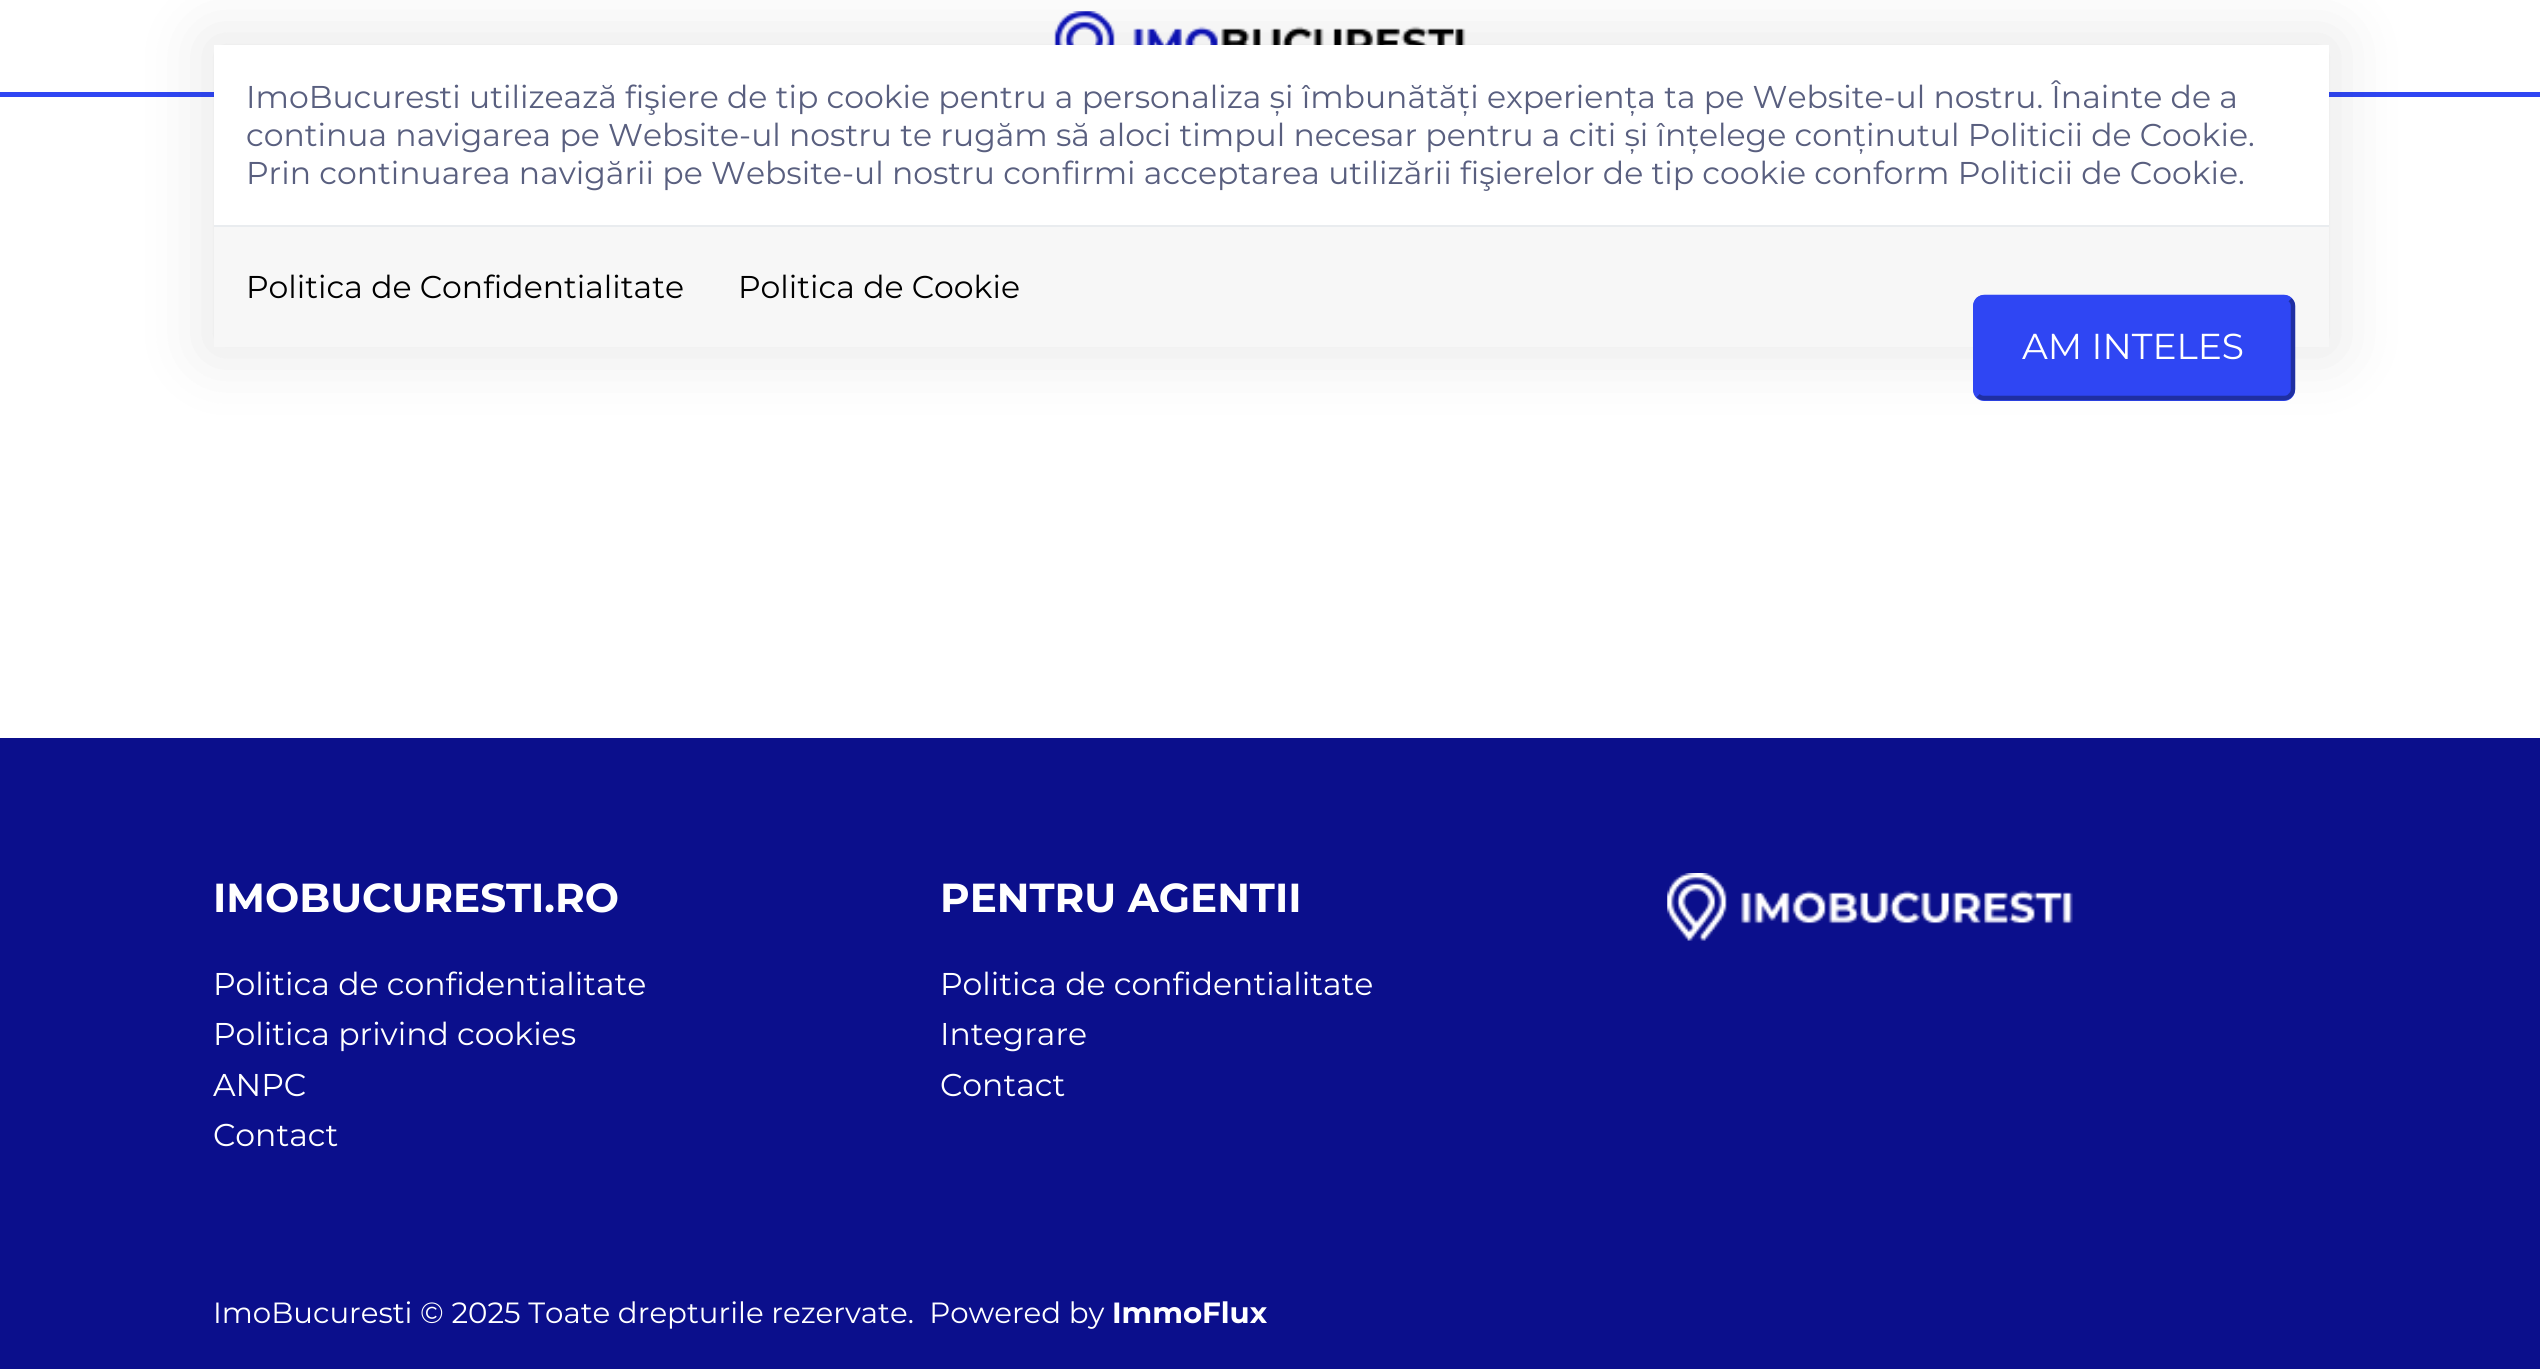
import math
import cairocffi as cairo

surface = cairo.ImageSurface(cairo.FORMAT_RGB24, 2540, 1369)
ctx = cairo.Context(surface)
options = cairo.FontOptions()
options.set_hint_metrics(cairo.HINT_METRICS_OFF)
options.set_hint_style(cairo.HINT_STYLE_NONE)
ctx.set_font_options(options)
ctx.set_miter_limit(4)


def rgb(r, g, b):
    ctx.set_source_rgb(r / 255, g / 255, b / 255)


def face(family, size, italic, bold):
    ctx.select_font_face(family, cairo.FONT_SLANT_ITALIC if italic else cairo.FONT_SLANT_NORMAL, cairo.FONT_WEIGHT_BOLD if bold else cairo.FONT_WEIGHT_NORMAL)
    ctx.set_font_size(size)


def label(x, y, s):
    ctx.move_to(x, y)
    ctx.show_text(s)


def rect(x, y, w, h):
    ctx.rectangle(x, y, w, h)
    ctx.fill()


def rrect(x, y, w, h, r):
    ctx.new_sub_path()
    for i, (u, v) in enumerate([(x + w - r, y + h - r), (x + r, y + h - r), (x + r, y + r), (x + w - r, y + r)]):
        ctx.arc(u, v, r, i * math.pi / 2, (i + 1) * math.pi / 2)
    ctx.close_path()


def soft_shadow(x, y, w, h, r, blur, alpha):
    ctx.push_group_with_content(cairo.CONTENT_ALPHA)
    ctx.set_operator(cairo.OPERATOR_SOURCE)
    for i in range(15, -16, -2):
        e = blur * i / 6
        if min(w, h) + 2 * e > 0:
            ctx.set_source_rgba(0, 0, 0, alpha * math.erfc((i - 1) / 8.5) / 2)
            rrect(x - e, y - e, w + 2 * e, h + 2 * e, max(0, min(r + e + blur * .6, min(w, h) / 2 + e)))
            ctx.fill()
    ctx.mask(ctx.pop_group())


def image(path, x, y, w, h):
    ctx.save()
    ctx.set_source_surface(cairo.ImageSurface.create_from_png(path), x, y)
    ctx.rectangle(x, y, w, h)
    ctx.fill()
    ctx.restore()


rgb(255, 255, 255)
ctx.paint()
rgb(47, 70, 243)
rect(0, 92, 2540, 5)
image('image0.png', 1054, 11, 412, 34)
rgb(0, 0, 0)
soft_shadow(207, 38, 2129, 315, 0, 34, 0.1)
rgb(255, 255, 255)
rect(214, 45, 2115, 180)
face('Montserrat', 31.5, 0, 0)
rgb(89, 95, 127)
label(246, 108, 'ImoBucuresti utilizează fişiere de tip cookie pentru a personaliza și îmbunătăți experiența ta pe Website-ul nostru. Înainte de a')
label(246, 146, 'continua navigarea pe Website-ul nostru te rugăm să aloci timpul necesar pentru a citi și înțelege conținutul Politicii de Cookie.')
label(246, 184, 'Prin continuarea navigării pe Website-ul nostru confirmi acceptarea utilizării fişierelor de tip cookie conform Politicii de Cookie.')
rgb(247, 247, 247)
rect(214, 227, 2115, 120)
rgb(233, 236, 239)
rect(214, 225, 2115, 2)
rgb(0, 0, 0)
label(246, 298, 'Politica de Confidentialitate')
label(738, 298, 'Politica de Cookie')
rgb(47, 70, 243)
rrect(1973, 295, 322, 106, 11)
ctx.fill()
ctx.new_path()
ctx.move_to(2290, 299.5)
ctx.curve_to(2292, 301.5, 2293, 303.5, 2293, 306)
ctx.line_to(2293, 389)
ctx.curve_to(2293, 391.5, 2292, 394, 2290, 395.5)
ctx.curve_to(2288.5, 397.5, 2286, 398, 2284, 398)
ctx.line_to(1984.5, 398)
ctx.curve_to(1982, 398, 1980, 397.5, 1978, 395.5)
rgb(31, 47, 162)
ctx.set_line_width(4.5)
ctx.stroke()
ctx.new_path()
ctx.move_to(1978, 395.5)
ctx.curve_to(1976.5, 394, 1975.5, 391.5, 1975.5, 389)
ctx.line_to(1975.5, 306)
ctx.curve_to(1975.5, 303.5, 1976.5, 301.5, 1978, 299.5)
ctx.curve_to(1980, 298, 1982, 297, 1984.5, 297)
ctx.line_to(2284, 297)
ctx.curve_to(2286, 297, 2288.5, 298, 2290, 299.5)
rgb(47, 70, 243)
ctx.stroke()
face('Montserrat', 36, 0, 0)
rgb(255, 255, 255)
label(2022, 359, 'AM INTELES')
rgb(11, 15, 140)
rect(0, 738, 2540, 631)
face('Montserrat', 40.5, 0, 1)
rgb(255, 255, 255)
label(213, 912, 'IMOBUCURESTI.RO')
face('Montserrat', 31.5, 0, 0)
label(213, 995, 'Politica de confidentialitate')
label(213, 1045, 'Politica privind cookies')
label(213, 1096, 'ANPC')
label(213, 1146, 'Contact')
face('Montserrat', 40.5, 0, 1)
label(940, 912, 'PENTRU AGENTII')
face('Montserrat', 31.5, 0, 0)
label(940, 995, 'Politica de confidentialitate')
label(940, 1045, 'Integrare')
label(940, 1096, 'Contact')
image('image1.png', 1667, 873, 406, 68)
face('Montserrat', 29.25, 0, 0)
label(213, 1323, 'ImoBucuresti © 2025 Toate drepturile rezervate.  Powered by')
face('Montserrat', 29.25, 0, 1)
label(1112, 1323, 'ImmoFlux')
surface.write_to_png('render.png')
